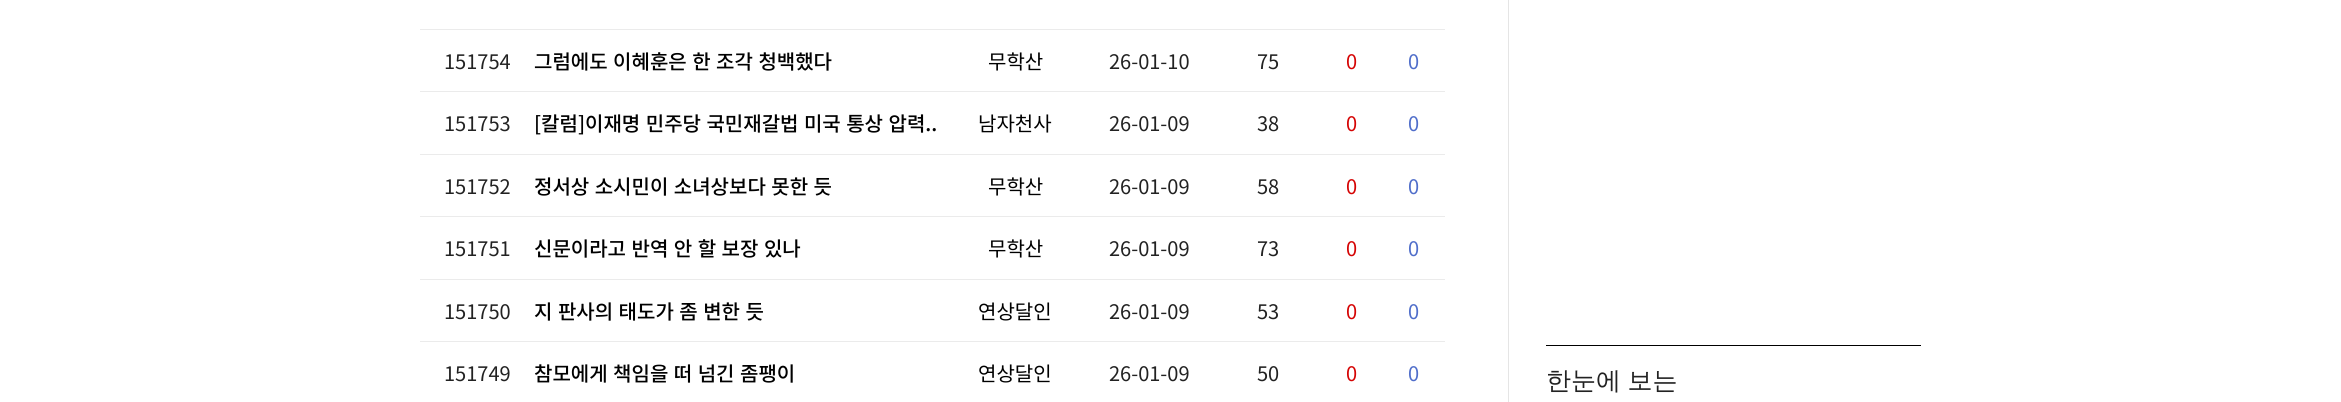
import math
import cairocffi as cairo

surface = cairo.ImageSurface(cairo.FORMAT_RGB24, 2341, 402)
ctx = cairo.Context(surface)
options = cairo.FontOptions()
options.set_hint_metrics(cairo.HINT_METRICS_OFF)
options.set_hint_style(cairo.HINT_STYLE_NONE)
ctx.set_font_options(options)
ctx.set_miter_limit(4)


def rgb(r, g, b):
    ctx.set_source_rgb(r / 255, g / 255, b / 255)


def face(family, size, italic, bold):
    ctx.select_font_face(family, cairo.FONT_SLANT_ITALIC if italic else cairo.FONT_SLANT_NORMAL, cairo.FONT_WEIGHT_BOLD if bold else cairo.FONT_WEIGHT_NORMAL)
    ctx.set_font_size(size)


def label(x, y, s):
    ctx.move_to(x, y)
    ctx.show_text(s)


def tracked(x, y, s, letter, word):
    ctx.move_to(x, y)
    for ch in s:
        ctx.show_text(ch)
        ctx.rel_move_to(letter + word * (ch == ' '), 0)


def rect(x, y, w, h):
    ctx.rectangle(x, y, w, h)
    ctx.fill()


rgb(255, 255, 255)
ctx.paint()
rgb(229, 229, 229)
rect(1508, 0, 1, 402)
rgb(235, 235, 235)
rect(420, 29, 1025, 1)
rect(420, 91, 1025, 1)
face('Noto Sans KR', 20, 0, 0)
rgb(34, 34, 34)
label(444, 69, '151754')
face('Noto Sans KR Medium', 20, 0, 0)
rgb(0, 0, 0)
tracked(534, 69, '그럼에도 이혜훈은 한 조각 청백했다', 0, 1)
face('Noto Sans KR', 20, 0, 0)
label(988, 69, '무학산')
rgb(34, 34, 34)
label(1109, 69, '26-01-10')
label(1257, 69, '75')
rgb(213, 4, 4)
label(1346, 69, '0')
rgb(80, 110, 202)
label(1408, 69, '0')
rgb(235, 235, 235)
rect(420, 154, 1025, 1)
rgb(34, 34, 34)
label(444, 131, '151753')
face('Noto Sans KR Medium', 20, 0, 0)
rgb(0, 0, 0)
tracked(534, 131, '[칼럼]이재명 민주당 국민재갈법 미국 통상 압력..', 0, 1)
face('Noto Sans KR', 20, 0, 0)
label(978, 131, '남자천사')
rgb(34, 34, 34)
label(1109, 131, '26-01-09')
label(1257, 131, '38')
rgb(213, 4, 4)
label(1346, 131, '0')
rgb(80, 110, 202)
label(1408, 131, '0')
rgb(235, 235, 235)
rect(420, 216, 1025, 1)
rgb(34, 34, 34)
label(444, 194, '151752')
face('Noto Sans KR Medium', 20, 0, 0)
rgb(0, 0, 0)
tracked(534, 194, '정서상 소시민이 소녀상보다 못한 듯', 0, 1)
face('Noto Sans KR', 20, 0, 0)
label(988, 194, '무학산')
rgb(34, 34, 34)
label(1109, 194, '26-01-09')
label(1257, 194, '58')
rgb(213, 4, 4)
label(1346, 194, '0')
rgb(80, 110, 202)
label(1408, 194, '0')
rgb(235, 235, 235)
rect(420, 279, 1025, 1)
rgb(34, 34, 34)
label(444, 256, '151751')
face('Noto Sans KR Medium', 20, 0, 0)
rgb(0, 0, 0)
tracked(534, 256, '신문이라고 반역 안 할 보장 있나', 0, 1)
face('Noto Sans KR', 20, 0, 0)
label(988, 256, '무학산')
rgb(34, 34, 34)
label(1109, 256, '26-01-09')
label(1257, 256, '73')
rgb(213, 4, 4)
label(1346, 256, '0')
rgb(80, 110, 202)
label(1408, 256, '0')
rgb(235, 235, 235)
rect(420, 341, 1025, 1)
rgb(34, 34, 34)
label(444, 319, '151750')
face('Noto Sans KR Medium', 20, 0, 0)
rgb(0, 0, 0)
tracked(534, 319, '지 판사의 태도가 좀 변한 듯', 0, 1)
face('Noto Sans KR', 20, 0, 0)
label(978, 319, '연상달인')
rgb(34, 34, 34)
label(1109, 319, '26-01-09')
label(1257, 319, '53')
rgb(213, 4, 4)
label(1346, 319, '0')
rgb(80, 110, 202)
label(1408, 319, '0')
rgb(34, 34, 34)
label(444, 381, '151749')
face('Noto Sans KR Medium', 20, 0, 0)
rgb(0, 0, 0)
tracked(534, 381, '참모에게 책임을 떠 넘긴 좀팽이', 0, 1)
face('Noto Sans KR', 20, 0, 0)
label(978, 381, '연상달인')
rgb(34, 34, 34)
label(1109, 381, '26-01-09')
label(1257, 381, '50')
rgb(213, 4, 4)
label(1346, 381, '0')
rgb(80, 110, 202)
label(1408, 381, '0')
rgb(0, 0, 0)
rect(1546, 345, 375, 1)
face('WenQuanYi Zen Hei Medium', 25, 0, 0)
rgb(34, 34, 34)
tracked(1546, 389, '한눈에 보는', 0, -1)
surface.write_to_png('render.png')
